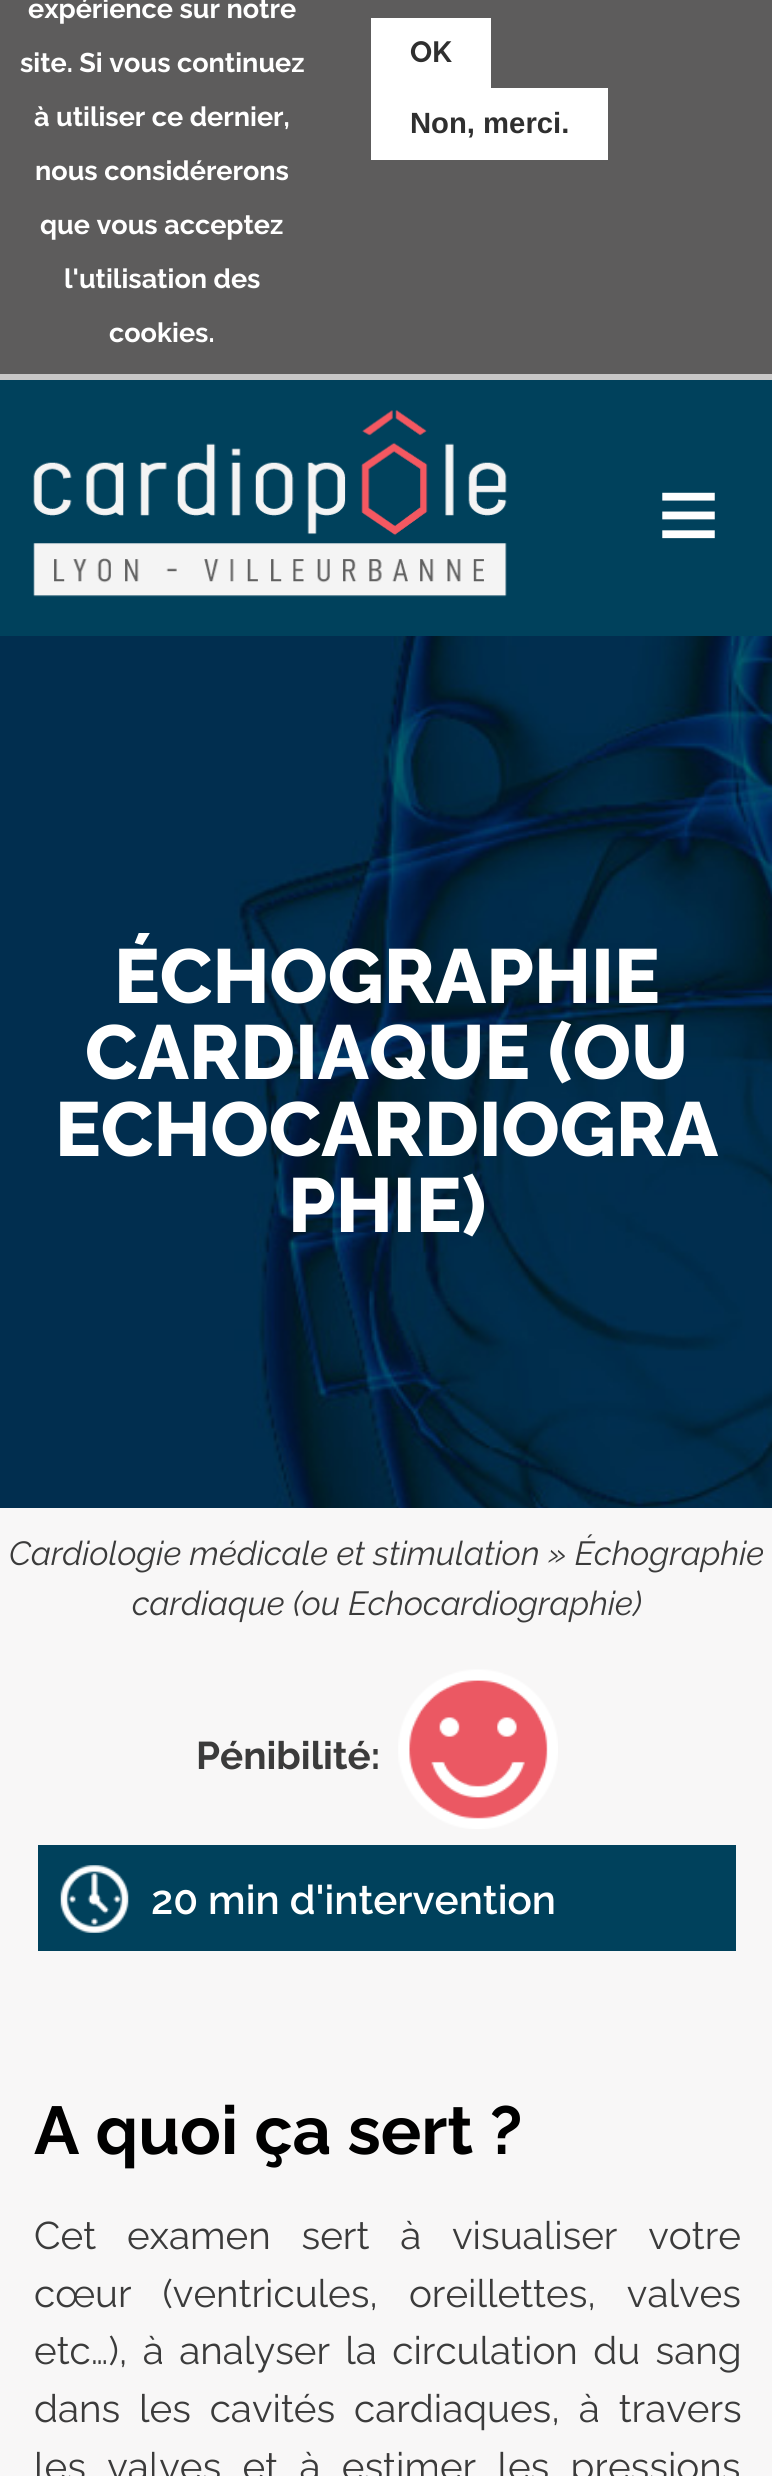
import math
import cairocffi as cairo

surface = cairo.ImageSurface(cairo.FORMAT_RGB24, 772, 2476)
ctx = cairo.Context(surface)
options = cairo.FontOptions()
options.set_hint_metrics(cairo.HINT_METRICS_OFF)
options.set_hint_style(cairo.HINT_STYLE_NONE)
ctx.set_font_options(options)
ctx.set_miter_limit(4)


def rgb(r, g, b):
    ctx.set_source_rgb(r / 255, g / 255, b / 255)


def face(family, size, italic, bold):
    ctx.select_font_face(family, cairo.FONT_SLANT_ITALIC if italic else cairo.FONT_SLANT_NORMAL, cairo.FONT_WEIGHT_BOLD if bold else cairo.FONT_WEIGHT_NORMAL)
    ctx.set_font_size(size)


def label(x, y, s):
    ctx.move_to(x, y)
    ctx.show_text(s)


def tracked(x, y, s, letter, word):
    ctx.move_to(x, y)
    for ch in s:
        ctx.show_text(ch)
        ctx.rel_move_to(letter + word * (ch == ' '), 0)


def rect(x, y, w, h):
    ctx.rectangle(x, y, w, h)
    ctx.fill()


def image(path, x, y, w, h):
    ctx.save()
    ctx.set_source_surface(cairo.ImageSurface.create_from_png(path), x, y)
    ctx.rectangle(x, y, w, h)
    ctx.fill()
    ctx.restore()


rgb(248, 247, 247)
ctx.paint()
rgb(93, 92, 92)
rect(0, 0, 772, 374)
face('Raleway', 27, 0, 1)
rgb(255, 255, 255)
label(28, 18, 'expérience sur notre')
label(20, 72, 'site. Si vous continuez')
label(34, 126, 'à utiliser ce dernier,')
label(35, 180, 'nous considérerons')
label(40, 234, 'que vous acceptez')
label(64, 288, 'l\'utilisation des')
label(109, 342, 'cookies.')
rect(371, 18, 120, 70)
face('Raleway', 29.25, 0, 1)
rgb(47, 47, 47)
label(410, 62, 'OK')
rgb(255, 255, 255)
rect(371, 88, 237, 72)
face('Liberation Sans', 29.25, 0, 1)
rgb(47, 47, 47)
label(410, 133, 'Non, merci.')
rgb(200, 199, 199)
rect(0, 374, 772, 6)
rgb(0, 65, 92)
rect(0, 380, 772, 256)
image('image0.png', 33, 409, 474, 188)
face('Liberation Sans', 108, 0, 0)
rgb(255, 255, 255)
label(657, 551, '≡')
image('image1.png', 0, 636, 772, 872)
face('Raleway ExtraBold', 76.5, 0, 0)
label(114, 1003, 'ÉCHOGRAPHIE')
label(85, 1079, 'CARDIAQUE (OU')
label(55, 1156, 'ECHOCARDIOGRA')
label(288, 1232, 'PHIE)')
face('Raleway', 33.4, 1, 0)
rgb(59, 59, 59)
label(9, 1565, 'Cardiologie médicale et stimulation » Échographie')
label(132, 1615, 'cardiaque (ou Echocardiographie)')
face('Raleway', 38.6, 0, 1)
label(196, 1769, 'Pénibilité:')
image('image2.png', 398, 1669, 160, 160)
rgb(0, 65, 92)
rect(38, 1845, 698, 106)
image('image3.png', 60, 1865, 69, 68)
face('Raleway SemiBold', 40.5, 0, 0)
rgb(255, 255, 255)
label(151, 1914, '20 min d\'intervention')
face('Raleway', 67.5, 0, 1)
rgb(0, 0, 0)
label(34, 2154, 'A quoi ça sert ?')
face('Raleway', 38.6, 0, 0)
rgb(59, 59, 59)
tracked(34, 2249, 'Cet examen sert à visualiser votre', 0, 21)
tracked(34, 2307, 'cœur (ventricules, oreillettes, valves', 0, 21)
tracked(34, 2364, 'etc…), à analyser la circulation du sang', 0, 5.5)
tracked(34, 2422, 'dans les cavités cardiaques, à travers', 0, 9)
tracked(34, 2480, 'les valves et à estimer les pressions', 0, 11.5)
surface.write_to_png('render.png')
